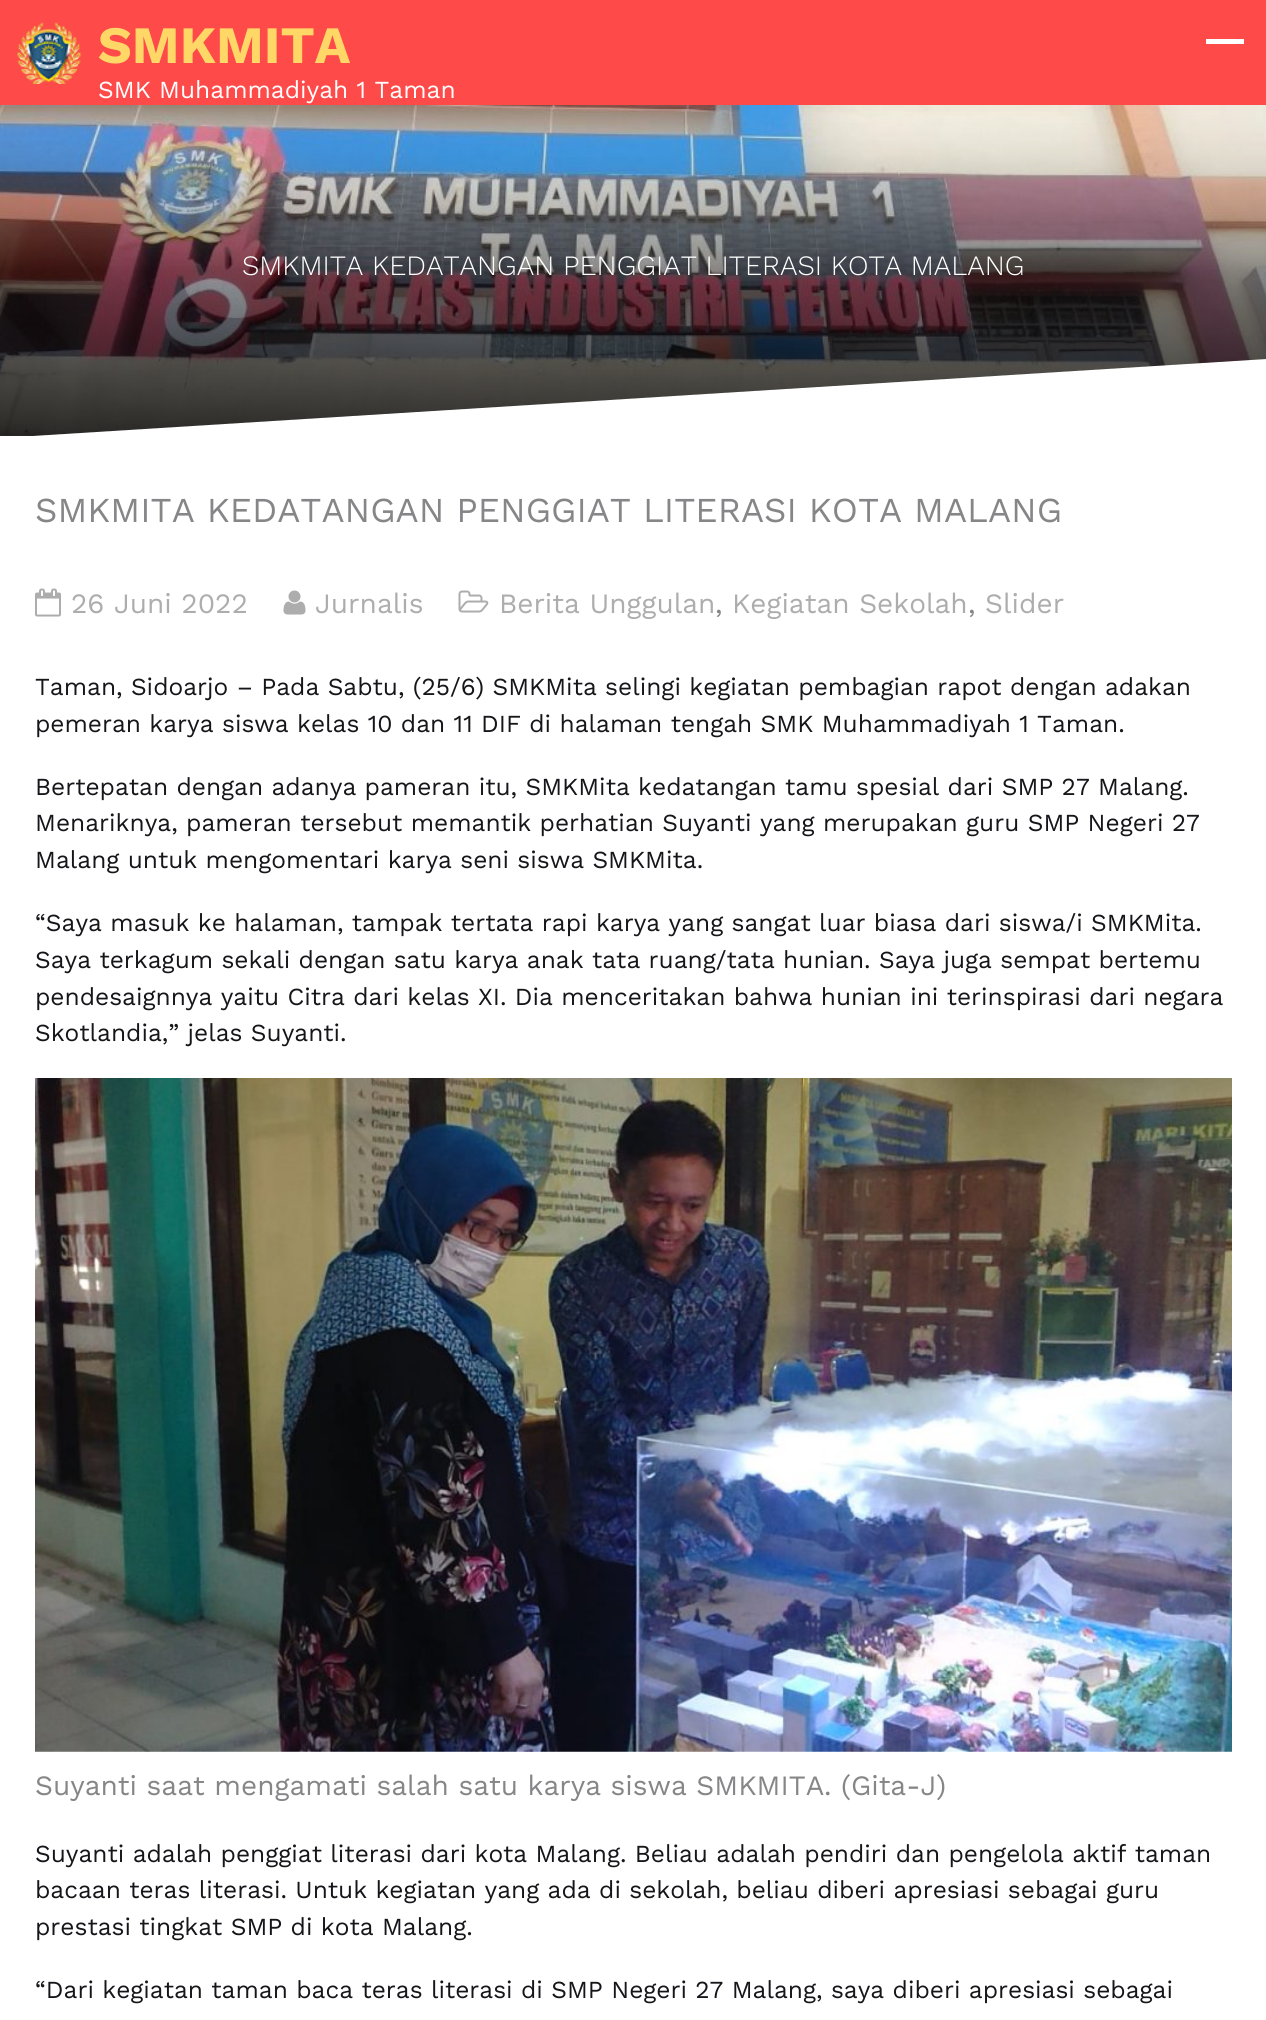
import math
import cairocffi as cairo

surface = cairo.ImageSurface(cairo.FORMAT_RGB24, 1266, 2020)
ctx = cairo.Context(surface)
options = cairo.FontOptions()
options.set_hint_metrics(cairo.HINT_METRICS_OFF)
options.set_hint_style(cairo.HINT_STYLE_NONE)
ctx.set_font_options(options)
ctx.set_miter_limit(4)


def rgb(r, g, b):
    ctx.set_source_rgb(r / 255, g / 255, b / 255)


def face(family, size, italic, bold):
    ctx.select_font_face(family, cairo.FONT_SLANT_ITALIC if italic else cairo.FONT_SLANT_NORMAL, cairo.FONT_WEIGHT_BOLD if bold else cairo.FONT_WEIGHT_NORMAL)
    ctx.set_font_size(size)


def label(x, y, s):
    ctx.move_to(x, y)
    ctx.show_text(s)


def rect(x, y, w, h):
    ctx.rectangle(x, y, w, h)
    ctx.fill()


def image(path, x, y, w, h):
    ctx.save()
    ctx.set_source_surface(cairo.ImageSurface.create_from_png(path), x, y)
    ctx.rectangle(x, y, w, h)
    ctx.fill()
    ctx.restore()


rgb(255, 255, 255)
ctx.paint()
rgb(254, 74, 73)
rect(0, 0, 1266, 105)
image('image0.png', 17, 22, 64, 62)
face('Work Sans', 52.5, 0, 1)
rgb(254, 215, 102)
label(98, 63, 'SMKMITA')
face('Work Sans', 24.5, 0, 0)
rgb(255, 255, 255)
label(98, 98, 'SMK Muhammadiyah 1 Taman')
rect(1206, 39, 38, 5)
image('image1.png', 0, 105, 1266, 331)
gradient = cairo.LinearGradient(634, 105, 634, 436)
gradient.add_color_stop_rgba(0, 1, 1, 0.882, 0.1)
gradient.add_color_stop_rgba(0.5, 0, 0, 0, 0.4)
gradient.add_color_stop_rgba(1, 0, 0, 0, 0.8)
ctx.set_source(gradient)
rect(0, 105, 1266, 331)
face('Work Sans Light', 28, 0, 0)
rgb(255, 255, 255)
label(242, 275, 'SMKMITA KEDATANGAN PENGGIAT LITERASI KOTA MALANG')
ctx.save()
ctx.rectangle(0, 359, 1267, 77)
ctx.clip()
ctx.new_path()
ctx.move_to(0, 438)
ctx.line_to(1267, 359)
ctx.line_to(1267, 438)
ctx.close_path()
ctx.fill()
ctx.restore()
face('Work Sans', 35, 0, 0)
rgb(134, 134, 136)
label(35, 522, 'SMKMITA KEDATANGAN PENGGIAT LITERASI KOTA MALANG')
image('image2.png', 35, 588, 26, 29)
face('Work Sans', 28, 0, 0)
rgb(173, 173, 174)
label(71, 613, '26 Juni 2022')
image('image3.png', 283, 590, 23, 25)
label(315, 613, 'Jurnalis')
image('image4.png', 458, 590, 31, 23)
label(499, 613, 'Berita Unggulan')
rgb(134, 134, 136)
label(715, 613, ',')
rgb(173, 173, 174)
label(732, 613, 'Kegiatan Sekolah')
rgb(134, 134, 136)
label(968, 613, ',')
rgb(173, 173, 174)
label(985, 613, 'Slider')
face('Work Sans', 24.5, 0, 0)
rgb(22, 22, 26)
label(35, 695, 'Taman, Sidoarjo – Pada Sabtu, (25/6) SMKMita selingi kegiatan pembagian rapot dengan adakan')
label(35, 732, 'pemeran karya siswa kelas 10 dan 11 DIF di halaman tengah SMK Muhammadiyah 1 Taman.')
label(35, 795, 'Bertepatan dengan adanya pameran itu, SMKMita kedatangan tamu spesial dari SMP 27 Malang.')
label(35, 831, 'Menariknya, pameran tersebut memantik perhatian Suyanti yang merupakan guru SMP Negeri 27')
label(35, 868, 'Malang untuk mengomentari karya seni siswa SMKMita.')
label(35, 931, '“Saya masuk ke halaman, tampak tertata rapi karya yang sangat luar biasa dari siswa/i SMKMita.')
label(35, 968, 'Saya terkagum sekali dengan satu karya anak tata ruang/tata hunian. Saya juga sempat bertemu')
label(35, 1005, 'pendesaignnya yaitu Citra dari kelas XI. Dia menceritakan bahwa hunian ini terinspirasi dari negara')
label(35, 1041, 'Skotlandia,” jelas Suyanti.')
image('image5.png', 35, 1078, 1197, 674)
face('Work Sans', 28, 0, 0)
rgb(134, 134, 136)
label(35, 1795, 'Suyanti saat mengamati salah satu karya siswa SMKMITA. (Gita-J)')
face('Work Sans', 24.5, 0, 0)
rgb(22, 22, 26)
label(35, 1862, 'Suyanti adalah penggiat literasi dari kota Malang. Beliau adalah pendiri dan pengelola aktif taman')
label(35, 1898, 'bacaan teras literasi. Untuk kegiatan yang ada di sekolah, beliau diberi apresiasi sebagai guru')
label(35, 1935, 'prestasi tingkat SMP di kota Malang.')
label(35, 1998, '“Dari kegiatan taman baca teras literasi di SMP Negeri 27 Malang, saya diberi apresiasi sebagai')
surface.write_to_png('render.png')
